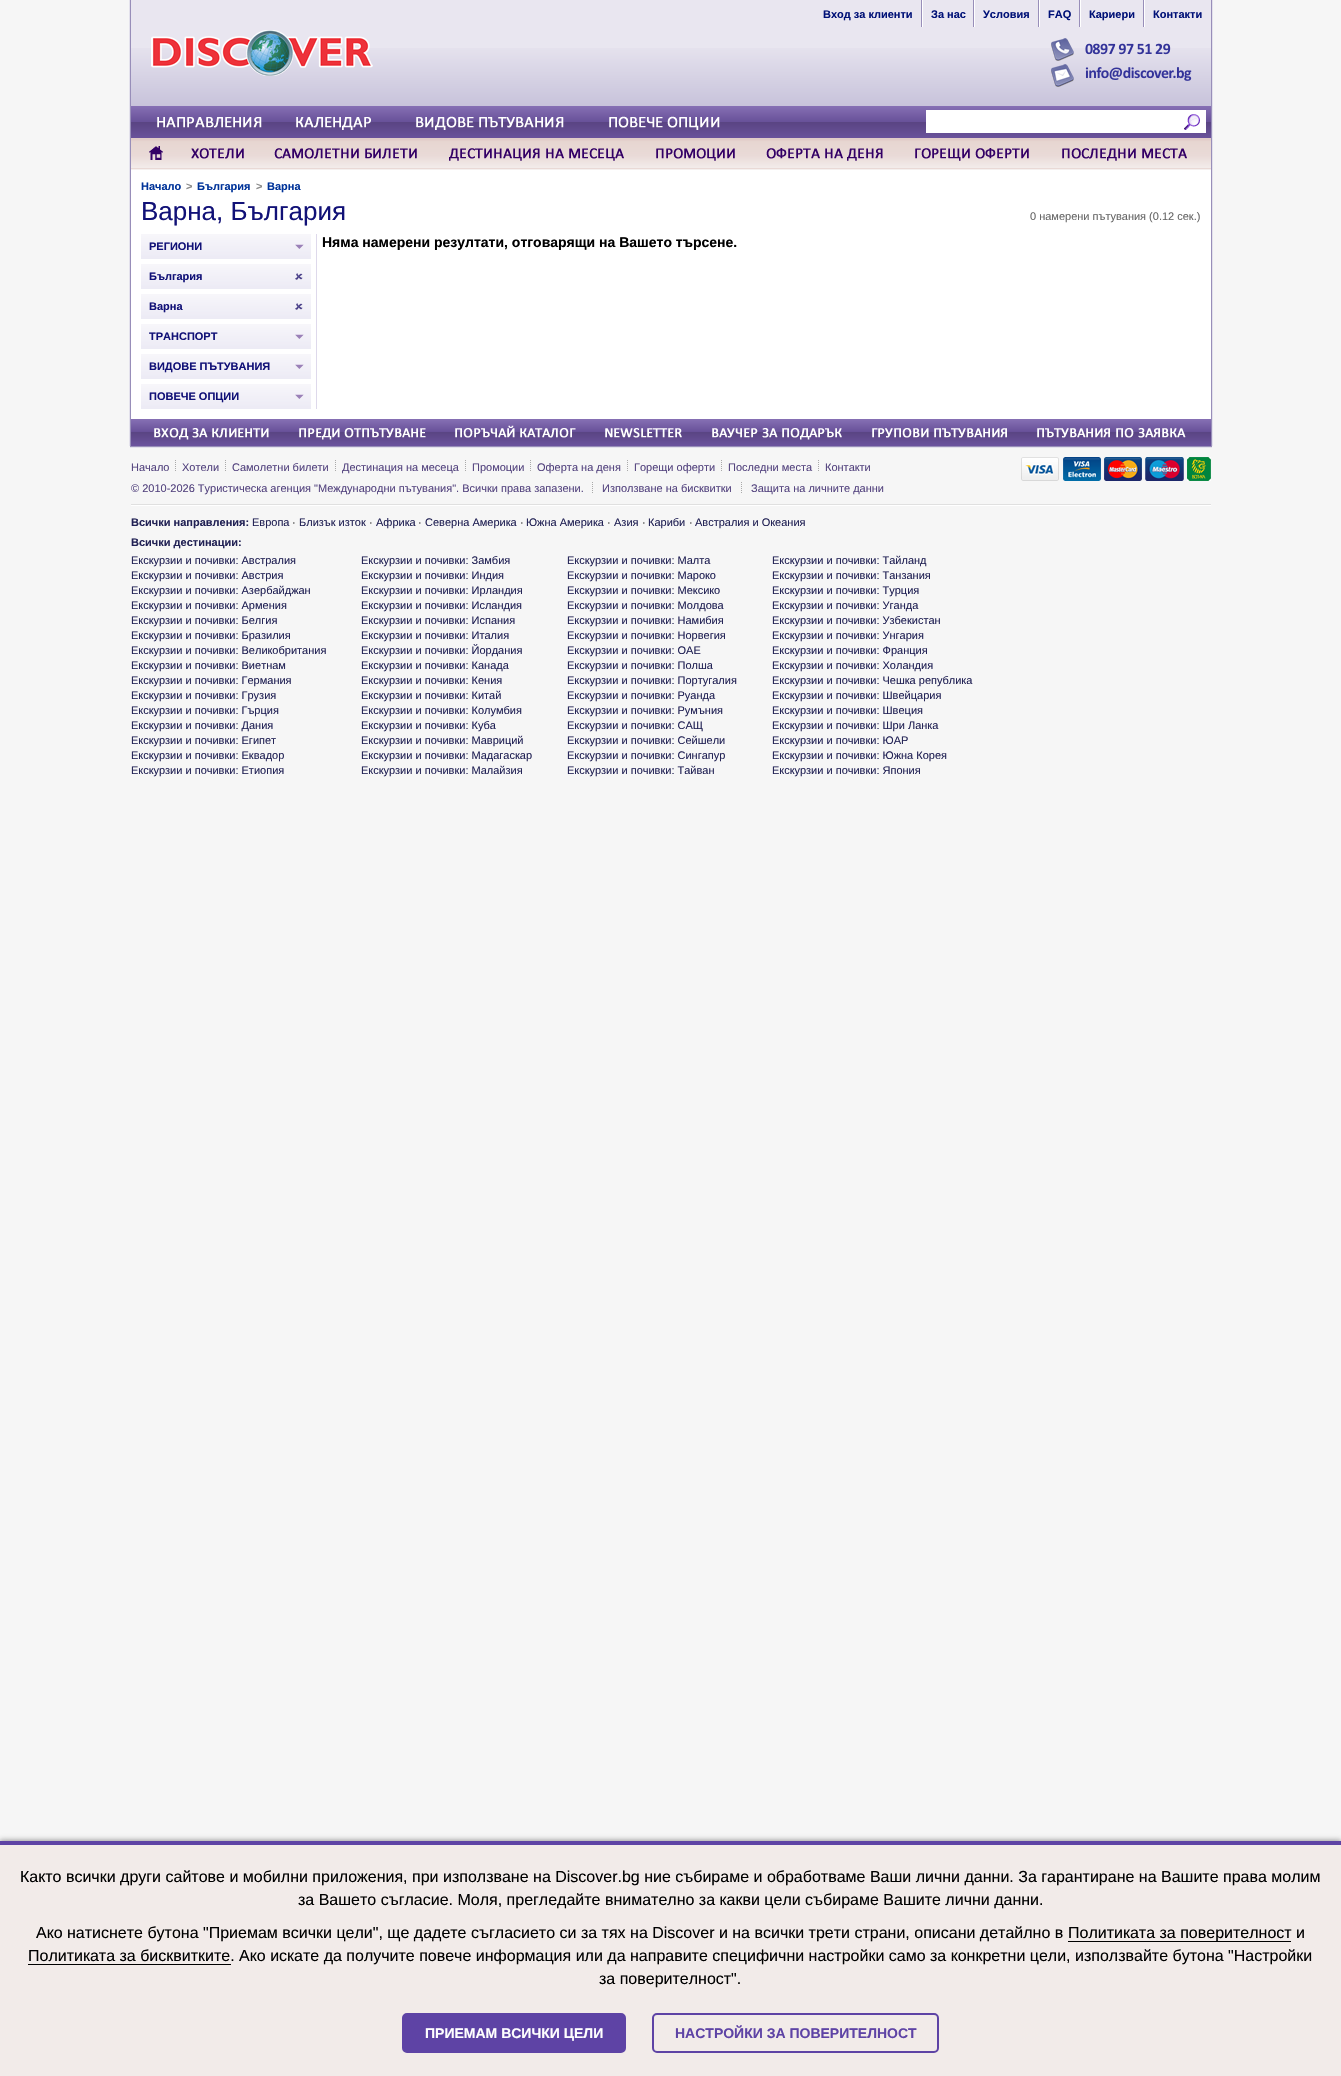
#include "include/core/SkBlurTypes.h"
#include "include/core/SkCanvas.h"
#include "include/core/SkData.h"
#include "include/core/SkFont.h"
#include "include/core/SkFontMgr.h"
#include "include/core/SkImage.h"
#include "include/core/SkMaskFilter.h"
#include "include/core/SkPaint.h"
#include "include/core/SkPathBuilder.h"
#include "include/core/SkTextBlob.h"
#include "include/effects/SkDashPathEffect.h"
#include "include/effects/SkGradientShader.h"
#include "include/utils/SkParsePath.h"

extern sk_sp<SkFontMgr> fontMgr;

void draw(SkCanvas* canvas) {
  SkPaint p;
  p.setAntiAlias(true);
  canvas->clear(SkColorSetRGB(246, 246, 246));
  p.setColor(SkColorSetRGB(227, 225, 236));
  canvas->drawRect(SkRect::MakeLTRB(129, 0, 1213, 446), p);
  p.setColor(SkColorSetRGB(152, 142, 185));
  canvas->drawRect(SkRect::MakeLTRB(130, 0, 1212, 447), p);
  p.setColor(SkColorSetRGB(233, 230, 240));
  canvas->drawRect(SkRect::MakeLTRB(131, 0, 1211, 48), p);
  canvas->drawImageRect(SkImages::DeferredFromEncodedData(SkData::MakeFromFileName("images/1.png")), SkRect::MakeLTRB(131, 48, 1211, 106), SkSamplingOptions());
  p.setColor(SkColorSetRGB(152, 142, 185));
  canvas->drawRect(SkRect::MakeLTRB(921, 0, 922, 27), p);
  canvas->drawRect(SkRect::MakeLTRB(973, 0, 974, 27), p);
  p.setColor(SK_ColorWHITE);
  canvas->drawRect(SkRect::MakeLTRB(922, 0, 923, 27), p);
  p.setColor(SkColorSetRGB(152, 142, 185));
  canvas->drawRect(SkRect::MakeLTRB(1038, 0, 1039, 27), p);
  p.setColor(SK_ColorWHITE);
  canvas->drawRect(SkRect::MakeLTRB(974, 0, 975, 27), p);
  p.setColor(SkColorSetRGB(152, 142, 185));
  canvas->drawRect(SkRect::MakeLTRB(1079, 0, 1080, 27), p);
  p.setColor(SK_ColorWHITE);
  canvas->drawRect(SkRect::MakeLTRB(1039, 0, 1040, 27), p);
  p.setColor(SkColorSetRGB(152, 142, 185));
  canvas->drawRect(SkRect::MakeLTRB(1143, 0, 1144, 27), p);
  p.setColor(SK_ColorWHITE);
  canvas->drawRect(SkRect::MakeLTRB(1080, 0, 1081, 27), p);
  canvas->drawRect(SkRect::MakeLTRB(1144, 0, 1145, 27), p);
  canvas->drawImageRect(SkImages::DeferredFromEncodedData(SkData::MakeFromFileName("images/2.png")), SkRect::MakeLTRB(151, 30, 373, 76), SkSamplingOptions());
  canvas->drawImageRect(SkImages::DeferredFromEncodedData(SkData::MakeFromFileName("images/3.png")), SkRect::MakeLTRB(1051, 38, 1171, 61), SkSamplingOptions());
  canvas->drawImageRect(SkImages::DeferredFromEncodedData(SkData::MakeFromFileName("images/4.png")), SkRect::MakeLTRB(1051, 64, 1192, 87), SkSamplingOptions());
  canvas->drawImageRect(SkImages::DeferredFromEncodedData(SkData::MakeFromFileName("images/5.png")), SkRect::MakeLTRB(131, 106, 1211, 138), SkSamplingOptions());
  canvas->drawImageRect(SkImages::DeferredFromEncodedData(SkData::MakeFromFileName("images/6.png")), SkRect::MakeLTRB(157, 117, 262, 128), SkSamplingOptions());
  canvas->drawImageRect(SkImages::DeferredFromEncodedData(SkData::MakeFromFileName("images/7.png")), SkRect::MakeLTRB(296, 117, 371, 130), SkSamplingOptions());
  canvas->drawImageRect(SkImages::DeferredFromEncodedData(SkData::MakeFromFileName("images/8.png")), SkRect::MakeLTRB(416, 116, 564, 130), SkSamplingOptions());
  canvas->drawImageRect(SkImages::DeferredFromEncodedData(SkData::MakeFromFileName("images/9.png")), SkRect::MakeLTRB(609, 116, 720, 130), SkSamplingOptions());
  canvas->drawRect(SkRect::MakeLTRB(926, 110, 1206, 133), p);
  canvas->drawImageRect(SkImages::DeferredFromEncodedData(SkData::MakeFromFileName("images/10.png")), SkRect::MakeLTRB(1184, 114, 1200, 130), SkSamplingOptions());
  canvas->drawImageRect(SkImages::DeferredFromEncodedData(SkData::MakeFromFileName("images/11.png")), SkRect::MakeLTRB(131, 138, 1211, 170), SkSamplingOptions());
  canvas->drawImageRect(SkImages::DeferredFromEncodedData(SkData::MakeFromFileName("images/12.png")), SkRect::MakeLTRB(149, 146, 163, 160), SkSamplingOptions());
  canvas->drawImageRect(SkImages::DeferredFromEncodedData(SkData::MakeFromFileName("images/13.png")), SkRect::MakeLTRB(191, 148, 244, 159), SkSamplingOptions());
  canvas->drawImageRect(SkImages::DeferredFromEncodedData(SkData::MakeFromFileName("images/14.png")), SkRect::MakeLTRB(274, 148, 417, 159), SkSamplingOptions());
  canvas->drawImageRect(SkImages::DeferredFromEncodedData(SkData::MakeFromFileName("images/15.png")), SkRect::MakeLTRB(449, 148, 624, 161), SkSamplingOptions());
  canvas->drawImageRect(SkImages::DeferredFromEncodedData(SkData::MakeFromFileName("images/16.png")), SkRect::MakeLTRB(656, 148, 735, 161), SkSamplingOptions());
  canvas->drawImageRect(SkImages::DeferredFromEncodedData(SkData::MakeFromFileName("images/17.png")), SkRect::MakeLTRB(766, 148, 883, 161), SkSamplingOptions());
  canvas->drawImageRect(SkImages::DeferredFromEncodedData(SkData::MakeFromFileName("images/18.png")), SkRect::MakeLTRB(915, 148, 1029, 161), SkSamplingOptions());
  canvas->drawImageRect(SkImages::DeferredFromEncodedData(SkData::MakeFromFileName("images/19.png")), SkRect::MakeLTRB(1062, 148, 1187, 161), SkSamplingOptions());
  canvas->drawRect(SkRect::MakeLTRB(131, 170, 1211, 419), p);
  canvas->drawImageRect(SkImages::DeferredFromEncodedData(SkData::MakeFromFileName("images/20.png")), SkRect::MakeLTRB(141, 234, 311, 259), SkSamplingOptions());
  canvas->drawImageRect(SkImages::DeferredFromEncodedData(SkData::MakeFromFileName("images/21.png")), SkRect::MakeLTRB(295, 244, 304, 249), SkSamplingOptions());
  canvas->drawImageRect(SkImages::DeferredFromEncodedData(SkData::MakeFromFileName("images/20.png")), SkRect::MakeLTRB(141, 264, 311, 289), SkSamplingOptions());
  canvas->drawImageRect(SkImages::DeferredFromEncodedData(SkData::MakeFromFileName("images/22.png")), SkRect::MakeLTRB(295, 273, 303, 280), SkSamplingOptions());
  canvas->drawImageRect(SkImages::DeferredFromEncodedData(SkData::MakeFromFileName("images/20.png")), SkRect::MakeLTRB(141, 294, 311, 319), SkSamplingOptions());
  canvas->drawImageRect(SkImages::DeferredFromEncodedData(SkData::MakeFromFileName("images/22.png")), SkRect::MakeLTRB(295, 303, 303, 310), SkSamplingOptions());
  canvas->drawImageRect(SkImages::DeferredFromEncodedData(SkData::MakeFromFileName("images/20.png")), SkRect::MakeLTRB(141, 324, 311, 349), SkSamplingOptions());
  canvas->drawImageRect(SkImages::DeferredFromEncodedData(SkData::MakeFromFileName("images/21.png")), SkRect::MakeLTRB(295, 334, 304, 339), SkSamplingOptions());
  canvas->drawImageRect(SkImages::DeferredFromEncodedData(SkData::MakeFromFileName("images/20.png")), SkRect::MakeLTRB(141, 354, 311, 379), SkSamplingOptions());
  canvas->drawImageRect(SkImages::DeferredFromEncodedData(SkData::MakeFromFileName("images/21.png")), SkRect::MakeLTRB(295, 364, 304, 369), SkSamplingOptions());
  canvas->drawImageRect(SkImages::DeferredFromEncodedData(SkData::MakeFromFileName("images/20.png")), SkRect::MakeLTRB(141, 384, 311, 409), SkSamplingOptions());
  canvas->drawImageRect(SkImages::DeferredFromEncodedData(SkData::MakeFromFileName("images/21.png")), SkRect::MakeLTRB(295, 394, 304, 399), SkSamplingOptions());
  p.setColor(SkColorSetRGB(222, 217, 235));
  canvas->drawRect(SkRect::MakeLTRB(316, 234, 317, 409), p);
  canvas->drawImageRect(SkImages::DeferredFromEncodedData(SkData::MakeFromFileName("images/23.png")), SkRect::MakeLTRB(131, 419, 1211, 446), SkSamplingOptions());
  canvas->drawImageRect(SkImages::DeferredFromEncodedData(SkData::MakeFromFileName("images/24.png")), SkRect::MakeLTRB(154, 428, 269, 440), SkSamplingOptions());
  canvas->drawImageRect(SkImages::DeferredFromEncodedData(SkData::MakeFromFileName("images/25.png")), SkRect::MakeLTRB(299, 428, 426, 440), SkSamplingOptions());
  canvas->drawImageRect(SkImages::DeferredFromEncodedData(SkData::MakeFromFileName("images/26.png")), SkRect::MakeLTRB(455, 425, 576, 438), SkSamplingOptions());
  canvas->drawImageRect(SkImages::DeferredFromEncodedData(SkData::MakeFromFileName("images/27.png")), SkRect::MakeLTRB(605, 428, 682, 438), SkSamplingOptions());
  canvas->drawImageRect(SkImages::DeferredFromEncodedData(SkData::MakeFromFileName("images/28.png")), SkRect::MakeLTRB(712, 428, 842, 440), SkSamplingOptions());
  canvas->drawImageRect(SkImages::DeferredFromEncodedData(SkData::MakeFromFileName("images/29.png")), SkRect::MakeLTRB(872, 428, 1007, 438), SkSamplingOptions());
  canvas->drawImageRect(SkImages::DeferredFromEncodedData(SkData::MakeFromFileName("images/30.png")), SkRect::MakeLTRB(1037, 428, 1186, 438), SkSamplingOptions());
  p.setColor(SkColorSetRGB(227, 225, 236));
  canvas->drawRect(SkRect::MakeLTRB(130, 447, 1212, 448), p);
  canvas->drawImageRect(SkImages::DeferredFromEncodedData(SkData::MakeFromFileName("images/31.png")), SkRect::MakeLTRB(175, 460, 176, 471), SkSamplingOptions());
  canvas->drawImageRect(SkImages::DeferredFromEncodedData(SkData::MakeFromFileName("images/31.png")), SkRect::MakeLTRB(225, 460, 226, 471), SkSamplingOptions());
  canvas->drawImageRect(SkImages::DeferredFromEncodedData(SkData::MakeFromFileName("images/31.png")), SkRect::MakeLTRB(335, 460, 336, 471), SkSamplingOptions());
  canvas->drawImageRect(SkImages::DeferredFromEncodedData(SkData::MakeFromFileName("images/31.png")), SkRect::MakeLTRB(465, 460, 466, 471), SkSamplingOptions());
  canvas->drawImageRect(SkImages::DeferredFromEncodedData(SkData::MakeFromFileName("images/31.png")), SkRect::MakeLTRB(530, 460, 531, 471), SkSamplingOptions());
  canvas->drawImageRect(SkImages::DeferredFromEncodedData(SkData::MakeFromFileName("images/31.png")), SkRect::MakeLTRB(627, 460, 628, 471), SkSamplingOptions());
  canvas->drawImageRect(SkImages::DeferredFromEncodedData(SkData::MakeFromFileName("images/31.png")), SkRect::MakeLTRB(721, 460, 722, 471), SkSamplingOptions());
  canvas->drawImageRect(SkImages::DeferredFromEncodedData(SkData::MakeFromFileName("images/31.png")), SkRect::MakeLTRB(818, 460, 819, 471), SkSamplingOptions());
  canvas->drawImageRect(SkImages::DeferredFromEncodedData(SkData::MakeFromFileName("images/32.png")), SkRect::MakeLTRB(1021, 457, 1211, 481), SkSamplingOptions());
  canvas->drawImageRect(SkImages::DeferredFromEncodedData(SkData::MakeFromFileName("images/31.png")), SkRect::MakeLTRB(592, 482, 593, 493), SkSamplingOptions());
  canvas->drawImageRect(SkImages::DeferredFromEncodedData(SkData::MakeFromFileName("images/31.png")), SkRect::MakeLTRB(741, 482, 742, 493), SkSamplingOptions());
  p.setColor(SkColorSetRGB(224, 224, 224));
  canvas->drawRect(SkRect::MakeLTRB(131, 504, 1211, 505), p);
  p.setColor(SK_ColorWHITE);
  canvas->drawRect(SkRect::MakeLTRB(131, 505, 1211, 506), p);
  p.setColor(SkColorSetARGB(115, 165, 165, 165));
  p.setMaskFilter(SkMaskFilter::MakeBlur(kNormal_SkBlurStyle, 2.5f));
  canvas->drawRect(SkRect::MakeLTRB(0, 1839, 1341, 2074), p);
  p.setMaskFilter(nullptr);
  p.setColor(SkColorSetARGB(166, 128, 128, 128));
  p.setMaskFilter(SkMaskFilter::MakeBlur(kNormal_SkBlurStyle, 2.5f));
  canvas->drawRect(SkRect::MakeLTRB(0, 1841, 1341, 2076), p);
  p.setMaskFilter(nullptr);
  p.setColor(SkColorSetRGB(242, 235, 233));
  canvas->drawRect(SkRect::MakeLTRB(0, 1845, 1341, 2076), p);
  p.setColor(SkColorSetRGB(94, 67, 165));
  canvas->drawRect(SkRect::MakeLTRB(0, 1841, 1341, 1845), p);
  p.setColor(SK_ColorBLACK);
  canvas->drawRect(SkRect::MakeLTRB(1068, 1941, 1291, 1942), p);
  canvas->drawRect(SkRect::MakeLTRB(28, 1964, 231, 1965), p);
  p.setColor(SkColorSetRGB(94, 67, 165));
  canvas->drawRoundRect(SkRect::MakeLTRB(403, 2014, 625, 2052), 4, 4, p);
  p.setStyle(SkPaint::kStroke_Style);
  p.setStrokeWidth(2);
  canvas->drawRoundRect(SkRect::MakeLTRB(403, 2014, 625, 2052), 4, 4, p);
  canvas->drawRoundRect(SkRect::MakeLTRB(653, 2014, 938, 2052), 4, 4, p);
  SkFont font1(fontMgr->matchFamilyStyle("Liberation Sans", SkFontStyle::Bold()), 11);
  font1.setSubpixel(true);
  p.setStyle(SkPaint::kFill_Style);
  p.setColor(SkColorSetRGB(0, 17, 119));
  canvas->drawString("Вход за клиенти", 823, 18, font1, p);
  canvas->drawString("За нас", 931, 18, font1, p);
  canvas->drawString("Условия", 983, 18, font1, p);
  canvas->drawString("FAQ", 1048, 18, font1, p);
  canvas->drawString("Кариери", 1089, 18, font1, p);
  canvas->drawString("Контакти", 1153, 18, font1, p);
  p.setColor(SkColorSetRGB(0, 51, 153));
  canvas->drawString("Начало", 141, 190, font1, p);
  p.setColor(SkColorSetRGB(136, 136, 136));
  canvas->drawString(">", 186, 190, font1, p);
  p.setColor(SkColorSetRGB(0, 51, 153));
  canvas->drawString("България", 197, 190, font1, p);
  p.setColor(SkColorSetRGB(136, 136, 136));
  canvas->drawString(">", 256, 190, font1, p);
  p.setColor(SkColorSetRGB(0, 51, 153));
  canvas->drawString("Варна", 267, 190, font1, p);
  SkFont font2(fontMgr->matchFamilyStyle("Liberation Sans", SkFontStyle::Normal()), 26);
  font2.setSubpixel(true);
  p.setColor(SkColorSetRGB(17, 17, 119));
  canvas->drawString("Варна, България", 141, 220, font2, p);
  SkFont font3(fontMgr->matchFamilyStyle("Liberation Sans", SkFontStyle::Normal()), 11);
  font3.setSubpixel(true);
  p.setColor(SkColorSetRGB(102, 102, 102));
  canvas->drawString("0 намерени пътувания (0.12 сек.)", 1030, 220, font3, p);
  p.setColor(SkColorSetRGB(17, 17, 119));
  canvas->drawString("РЕГИОНИ", 149, 250, font1, p);
  canvas->drawString("България", 149, 280, font1, p);
  canvas->drawString("Варна", 149, 310, font1, p);
  canvas->drawString("ТРАНСПОРТ", 149, 340, font1, p);
  canvas->drawString("ВИДОВЕ ПЪТУВАНИЯ", 149, 370, font1, p);
  canvas->drawString("ПОВЕЧЕ ОПЦИИ", 149, 400, font1, p);
  SkFont font4(fontMgr->matchFamilyStyle("Liberation Sans", SkFontStyle::Bold()), 14);
  font4.setSubpixel(true);
  p.setColor(SK_ColorBLACK);
  canvas->drawString("Няма намерени резултати, отговарящи на Вашето търсене.", 322, 247, font4, p);
  p.setColor(SkColorSetRGB(84, 68, 127));
  canvas->drawString("Начало", 131, 471, font3, p);
  canvas->drawString("Хотели", 182, 471, font3, p);
  canvas->drawString("Самолетни билети", 232, 471, font3, p);
  canvas->drawString("Дестинация на месеца", 342, 471, font3, p);
  canvas->drawString("Промоции", 472, 471, font3, p);
  canvas->drawString("Оферта на деня", 537, 471, font3, p);
  canvas->drawString("Горещи оферти", 634, 471, font3, p);
  canvas->drawString("Последни места", 728, 471, font3, p);
  canvas->drawString("Контакти", 825, 471, font3, p);
  canvas->drawString("© 2010-2026 Туристическа агенция \"Международни пътувания\". Всички права запазени.", 131, 492, font3, p);
  canvas->drawString("Използване на бисквитки", 602, 492, font3, p);
  canvas->drawString("Защита на личните данни", 751, 492, font3, p);
  p.setColor(SkColorSetRGB(34, 34, 85));
  canvas->drawString("Всички направления:", 131, 526, font1, p);
  canvas->drawString("Европа", 252, 526, font3, p);
  p.setColor(SK_ColorBLACK);
  canvas->drawString("·", 292, 526, font3, p);
  p.setColor(SkColorSetRGB(34, 34, 85));
  canvas->drawString("Близък изток", 299, 526, font3, p);
  p.setColor(SK_ColorBLACK);
  canvas->drawString("·", 369, 526, font3, p);
  p.setColor(SkColorSetRGB(34, 34, 85));
  canvas->drawString("Африка", 376, 526, font3, p);
  p.setColor(SK_ColorBLACK);
  canvas->drawString("·", 418, 526, font3, p);
  p.setColor(SkColorSetRGB(34, 34, 85));
  canvas->drawString("Северна Америка", 425, 526, font3, p);
  p.setColor(SK_ColorBLACK);
  canvas->drawString("·", 520, 526, font3, p);
  p.setColor(SkColorSetRGB(34, 34, 85));
  canvas->drawString("Южна Америка", 526, 526, font3, p);
  p.setColor(SK_ColorBLACK);
  canvas->drawString("·", 607, 526, font3, p);
  p.setColor(SkColorSetRGB(34, 34, 85));
  canvas->drawString("Азия", 614, 526, font3, p);
  p.setColor(SK_ColorBLACK);
  canvas->drawString("·", 642, 526, font3, p);
  p.setColor(SkColorSetRGB(34, 34, 85));
  canvas->drawString("Кариби", 648, 526, font3, p);
  p.setColor(SK_ColorBLACK);
  canvas->drawString("·", 689, 526, font3, p);
  p.setColor(SkColorSetRGB(34, 34, 85));
  canvas->drawString("Австралия и Океания", 695, 526, font3, p);
  canvas->drawString("Всички дестинации:", 131, 546, font1, p);
  canvas->drawString("Екскурзии и почивки: Австралия", 131, 564, font3, p);
  canvas->drawString("Екскурзии и почивки: Австрия", 131, 579, font3, p);
  canvas->drawString("Екскурзии и почивки: Азербайджан", 131, 594, font3, p);
  canvas->drawString("Екскурзии и почивки: Армения", 131, 609, font3, p);
  canvas->drawString("Екскурзии и почивки: Белгия", 131, 624, font3, p);
  canvas->drawString("Екскурзии и почивки: Бразилия", 131, 639, font3, p);
  canvas->drawString("Екскурзии и почивки: Великобритания", 131, 654, font3, p);
  canvas->drawString("Екскурзии и почивки: Виетнам", 131, 669, font3, p);
  canvas->drawString("Екскурзии и почивки: Германия", 131, 684, font3, p);
  canvas->drawString("Екскурзии и почивки: Грузия", 131, 699, font3, p);
  canvas->drawString("Екскурзии и почивки: Гърция", 131, 714, font3, p);
  canvas->drawString("Екскурзии и почивки: Дания", 131, 729, font3, p);
  canvas->drawString("Екскурзии и почивки: Египет", 131, 744, font3, p);
  canvas->drawString("Екскурзии и почивки: Еквадор", 131, 759, font3, p);
  canvas->drawString("Екскурзии и почивки: Етиопия", 131, 774, font3, p);
  canvas->drawString("Екскурзии и почивки: Замбия", 361, 564, font3, p);
  canvas->drawString("Екскурзии и почивки: Индия", 361, 579, font3, p);
  canvas->drawString("Екскурзии и почивки: Ирландия", 361, 594, font3, p);
  canvas->drawString("Екскурзии и почивки: Исландия", 361, 609, font3, p);
  canvas->drawString("Екскурзии и почивки: Испания", 361, 624, font3, p);
  canvas->drawString("Екскурзии и почивки: Италия", 361, 639, font3, p);
  canvas->drawString("Екскурзии и почивки: Йордания", 361, 654, font3, p);
  canvas->drawString("Екскурзии и почивки: Канада", 361, 669, font3, p);
  canvas->drawString("Екскурзии и почивки: Кения", 361, 684, font3, p);
  canvas->drawString("Екскурзии и почивки: Китай", 361, 699, font3, p);
  canvas->drawString("Екскурзии и почивки: Колумбия", 361, 714, font3, p);
  canvas->drawString("Екскурзии и почивки: Куба", 361, 729, font3, p);
  canvas->drawString("Екскурзии и почивки: Мавриций", 361, 744, font3, p);
  canvas->drawString("Екскурзии и почивки: Мадагаскар", 361, 759, font3, p);
  canvas->drawString("Екскурзии и почивки: Малайзия", 361, 774, font3, p);
  canvas->drawString("Екскурзии и почивки: Малта", 567, 564, font3, p);
  canvas->drawString("Екскурзии и почивки: Мароко", 567, 579, font3, p);
  canvas->drawString("Екскурзии и почивки: Мексико", 567, 594, font3, p);
  canvas->drawString("Екскурзии и почивки: Молдова", 567, 609, font3, p);
  canvas->drawString("Екскурзии и почивки: Намибия", 567, 624, font3, p);
  canvas->drawString("Екскурзии и почивки: Норвегия", 567, 639, font3, p);
  canvas->drawString("Екскурзии и почивки: ОАЕ", 567, 654, font3, p);
  canvas->drawString("Екскурзии и почивки: Полша", 567, 669, font3, p);
  canvas->drawString("Екскурзии и почивки: Португалия", 567, 684, font3, p);
  canvas->drawString("Екскурзии и почивки: Руанда", 567, 699, font3, p);
  canvas->drawString("Екскурзии и почивки: Румъния", 567, 714, font3, p);
  canvas->drawString("Екскурзии и почивки: САЩ", 567, 729, font3, p);
  canvas->drawString("Екскурзии и почивки: Сейшели", 567, 744, font3, p);
  canvas->drawString("Екскурзии и почивки: Сингапур", 567, 759, font3, p);
  canvas->drawString("Екскурзии и почивки: Тайван", 567, 774, font3, p);
  canvas->drawString("Екскурзии и почивки: Тайланд", 772, 564, font3, p);
  canvas->drawString("Екскурзии и почивки: Танзания", 772, 579, font3, p);
  canvas->drawString("Екскурзии и почивки: Турция", 772, 594, font3, p);
  canvas->drawString("Екскурзии и почивки: Уганда", 772, 609, font3, p);
  canvas->drawString("Екскурзии и почивки: Узбекистан", 772, 624, font3, p);
  canvas->drawString("Екскурзии и почивки: Унгария", 772, 639, font3, p);
  canvas->drawString("Екскурзии и почивки: Франция", 772, 654, font3, p);
  canvas->drawString("Екскурзии и почивки: Холандия", 772, 669, font3, p);
  canvas->drawString("Екскурзии и почивки: Чешка република", 772, 684, font3, p);
  canvas->drawString("Екскурзии и почивки: Швейцария", 772, 699, font3, p);
  canvas->drawString("Екскурзии и почивки: Швеция", 772, 714, font3, p);
  canvas->drawString("Екскурзии и почивки: Шри Ланка", 772, 729, font3, p);
  canvas->drawString("Екскурзии и почивки: ЮАР", 772, 744, font3, p);
  canvas->drawString("Екскурзии и почивки: Южна Корея", 772, 759, font3, p);
  canvas->drawString("Екскурзии и почивки: Япония", 772, 774, font3, p);
  SkFont font5(fontMgr->matchFamilyStyle("Liberation Sans", SkFontStyle::Normal()), 16);
  font5.setSubpixel(true);
  p.setColor(SK_ColorBLACK);
  canvas->drawString("Както всички други сайтове и мобилни приложения, при използване на Discover.bg ние събираме и обработваме Ваши лични данни. За гарантиране на Вашите права молим", 20, 1882, font5, p);
  canvas->drawString("за Вашето съгласие. Моля, прегледайте внимателно за какви цели събираме Вашите лични данни.", 298, 1905, font5, p);
  canvas->drawString("Ако натиснете бутона \"Приемам всички цели\", ще дадете съгласието си за тях на Discover и на всички трети страни, описани детайлно в", 36, 1938, font5, p);
  canvas->drawString("Политиката за поверителност и", 1068, 1938, font5, p);
  canvas->drawString("Политиката за бисквитките. Ако искате да получите повече информация или да направите специфични настройки само за конкретни цели, използвайте бутона \"Настройки", 28, 1961, font5, p);
  canvas->drawString("за поверителност\".", 599, 1984, font5, p);
  p.setColor(SK_ColorWHITE);
  canvas->drawString("ПРИЕМАМ ВСИЧКИ ЦЕЛИ", 425, 2038, font4, p);
  p.setColor(SkColorSetRGB(94, 67, 165));
  canvas->drawString("НАСТРОЙКИ ЗА ПОВЕРИТЕЛНОСТ", 675, 2038, font4, p);
}
